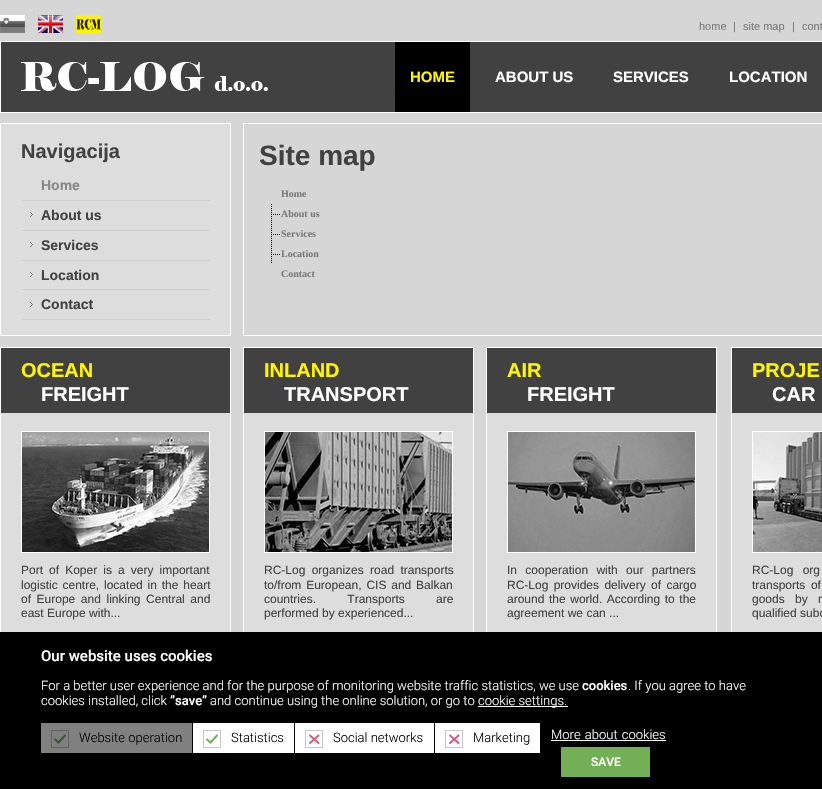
#include "include/core/SkBlurTypes.h"
#include "include/core/SkCanvas.h"
#include "include/core/SkData.h"
#include "include/core/SkFont.h"
#include "include/core/SkFontMgr.h"
#include "include/core/SkImage.h"
#include "include/core/SkMaskFilter.h"
#include "include/core/SkPaint.h"
#include "include/core/SkPathBuilder.h"
#include "include/core/SkTextBlob.h"
#include "include/effects/SkDashPathEffect.h"
#include "include/effects/SkGradientShader.h"
#include "include/utils/SkParsePath.h"

extern sk_sp<SkFontMgr> fontMgr;

void draw(SkCanvas* canvas) {
  SkPaint p;
  p.setAntiAlias(true);
  auto spacedText = [&](const char* s, float x, float y, const SkFont& font, const SkPaint& ink, float letter, float word) {
    std::vector<SkGlyphID> glyphs(font.countText(s, strlen(s), SkTextEncoding::kUTF8));
    std::vector<float> xs(glyphs.size());
    font.textToGlyphs(s, strlen(s), SkTextEncoding::kUTF8, glyphs);
    font.getXPos(glyphs, xs, x);
    float extra = 0;
    for (size_t i = 0; i < glyphs.size(); i++) {
      xs[i] += extra;
      extra += letter + word * (glyphs[i] == font.unicharToGlyph(' '));
    }
    canvas->drawTextBlob(SkTextBlob::MakeFromPosHGlyphs(glyphs, xs, y, font), 0, 0, ink);
  };
  canvas->clear(SkColorSetRGB(214, 214, 214));
  canvas->drawImageRect(SkImages::DeferredFromEncodedData(SkData::MakeFromFileName("images/1.png")), SkRect::MakeLTRB(0, 15, 25, 33), SkSamplingOptions());
  canvas->drawImageRect(SkImages::DeferredFromEncodedData(SkData::MakeFromFileName("images/2.png")), SkRect::MakeLTRB(38, 15, 63, 33), SkSamplingOptions());
  canvas->drawImageRect(SkImages::DeferredFromEncodedData(SkData::MakeFromFileName("images/3.png")), SkRect::MakeLTRB(76, 15, 101, 33), SkSamplingOptions());
  p.setColor(SkColorSetRGB(65, 65, 65));
  canvas->drawRect(SkRect::MakeLTRB(0.5f, 41.5f, 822.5f, 112.5f), p);
  p.setStyle(SkPaint::kStroke_Style);
  p.setStrokeWidth(1);
  p.setColor(SK_ColorWHITE);
  canvas->drawRect(SkRect::MakeLTRB(0.5f, 41.5f, 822.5f, 112.5f), p);
  canvas->drawImageRect(SkImages::DeferredFromEncodedData(SkData::MakeFromFileName("images/4.png")), SkRect::MakeLTRB(21, 62, 268, 91), SkSamplingOptions());
  p.setStyle(SkPaint::kFill_Style);
  p.setColor(SK_ColorBLACK);
  canvas->drawRect(SkRect::MakeLTRB(395, 42, 470, 112), p);
  p.setColor(SkColorSetRGB(221, 221, 221));
  canvas->drawRect(SkRect::MakeLTRB(0.5f, 123.5f, 230.5f, 335.5f), p);
  p.setStyle(SkPaint::kStroke_Style);
  p.setColor(SK_ColorWHITE);
  canvas->drawRect(SkRect::MakeLTRB(0.5f, 123.5f, 230.5f, 335.5f), p);
  p.setStyle(SkPaint::kFill_Style);
  p.setColor(SkColorSetRGB(207, 207, 207));
  canvas->drawRect(SkRect::MakeLTRB(21, 200, 210, 201), p);
  canvas->drawImageRect(SkImages::DeferredFromEncodedData(SkData::MakeFromFileName("images/5.png")), SkRect::MakeLTRB(30, 183, 33, 188), SkSamplingOptions());
  canvas->drawRect(SkRect::MakeLTRB(21, 230, 210, 231), p);
  canvas->drawImageRect(SkImages::DeferredFromEncodedData(SkData::MakeFromFileName("images/6.png")), SkRect::MakeLTRB(30, 212, 33, 217), SkSamplingOptions());
  canvas->drawRect(SkRect::MakeLTRB(21, 260, 210, 261), p);
  canvas->drawImageRect(SkImages::DeferredFromEncodedData(SkData::MakeFromFileName("images/6.png")), SkRect::MakeLTRB(30, 242, 33, 247), SkSamplingOptions());
  canvas->drawRect(SkRect::MakeLTRB(21, 289, 210, 290), p);
  canvas->drawImageRect(SkImages::DeferredFromEncodedData(SkData::MakeFromFileName("images/6.png")), SkRect::MakeLTRB(30, 272, 33, 277), SkSamplingOptions());
  canvas->drawRect(SkRect::MakeLTRB(21, 319, 210, 320), p);
  canvas->drawImageRect(SkImages::DeferredFromEncodedData(SkData::MakeFromFileName("images/6.png")), SkRect::MakeLTRB(30, 302, 33, 307), SkSamplingOptions());
  p.setStyle(SkPaint::kStroke_Style);
  p.setColor(SK_ColorWHITE);
  canvas->drawRect(SkRect::MakeLTRB(243.5f, 123.5f, 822.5f, 335.5f), p);
  canvas->drawImageRect(SkImages::DeferredFromEncodedData(SkData::MakeFromFileName("images/7.png")), SkRect::MakeLTRB(271, 204, 280, 223), SkSamplingOptions());
  canvas->drawImageRect(SkImages::DeferredFromEncodedData(SkData::MakeFromFileName("images/7.png")), SkRect::MakeLTRB(271, 224, 280, 243), SkSamplingOptions());
  canvas->drawImageRect(SkImages::DeferredFromEncodedData(SkData::MakeFromFileName("images/7.png")), SkRect::MakeLTRB(271, 244, 280, 263), SkSamplingOptions());
  p.setStyle(SkPaint::kFill_Style);
  p.setColor(SkColorSetRGB(221, 221, 221));
  canvas->drawRect(SkRect::MakeLTRB(1, 413, 230, 632), p);
  p.setStyle(SkPaint::kStroke_Style);
  p.setColor(SK_ColorWHITE);
  canvas->drawRect(SkRect::MakeLTRB(0.5f, 347.5f, 230.5f, 665.5f), p);
  p.setStyle(SkPaint::kFill_Style);
  p.setColor(SkColorSetRGB(65, 65, 65));
  canvas->drawRect(SkRect::MakeLTRB(1, 348, 230, 413), p);
  p.setStyle(SkPaint::kStroke_Style);
  p.setColor(SK_ColorWHITE);
  canvas->drawRect(SkRect::MakeLTRB(21.5f, 431.5f, 209.5f, 552.5f), p);
  canvas->drawImageRect(SkImages::DeferredFromEncodedData(SkData::MakeFromFileName("images/8.png")), SkRect::MakeLTRB(22, 432, 209, 552), SkSamplingOptions());
  p.setStyle(SkPaint::kFill_Style);
  p.setColor(SkColorSetRGB(221, 221, 221));
  canvas->drawRect(SkRect::MakeLTRB(244, 413, 473, 632), p);
  p.setStyle(SkPaint::kStroke_Style);
  p.setColor(SK_ColorWHITE);
  canvas->drawRect(SkRect::MakeLTRB(243.5f, 347.5f, 473.5f, 665.5f), p);
  p.setStyle(SkPaint::kFill_Style);
  p.setColor(SkColorSetRGB(65, 65, 65));
  canvas->drawRect(SkRect::MakeLTRB(244, 348, 473, 413), p);
  p.setStyle(SkPaint::kStroke_Style);
  p.setColor(SK_ColorWHITE);
  canvas->drawRect(SkRect::MakeLTRB(264.5f, 431.5f, 452.5f, 552.5f), p);
  canvas->drawImageRect(SkImages::DeferredFromEncodedData(SkData::MakeFromFileName("images/9.png")), SkRect::MakeLTRB(265, 432, 452, 552), SkSamplingOptions());
  p.setStyle(SkPaint::kFill_Style);
  p.setColor(SkColorSetRGB(221, 221, 221));
  canvas->drawRect(SkRect::MakeLTRB(487, 413, 716, 632), p);
  p.setStyle(SkPaint::kStroke_Style);
  p.setColor(SK_ColorWHITE);
  canvas->drawRect(SkRect::MakeLTRB(486.5f, 347.5f, 716.5f, 665.5f), p);
  p.setStyle(SkPaint::kFill_Style);
  p.setColor(SkColorSetRGB(65, 65, 65));
  canvas->drawRect(SkRect::MakeLTRB(487, 348, 716, 413), p);
  p.setStyle(SkPaint::kStroke_Style);
  p.setColor(SK_ColorWHITE);
  canvas->drawRect(SkRect::MakeLTRB(507.5f, 431.5f, 695.5f, 552.5f), p);
  canvas->drawImageRect(SkImages::DeferredFromEncodedData(SkData::MakeFromFileName("images/10.png")), SkRect::MakeLTRB(508, 432, 695, 552), SkSamplingOptions());
  p.setStyle(SkPaint::kFill_Style);
  p.setColor(SkColorSetRGB(221, 221, 221));
  canvas->drawRect(SkRect::MakeLTRB(732, 413, 822, 632), p);
  p.setStyle(SkPaint::kStroke_Style);
  p.setColor(SK_ColorWHITE);
  canvas->drawRect(SkRect::MakeLTRB(731.5f, 347.5f, 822.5f, 665.5f), p);
  p.setStyle(SkPaint::kFill_Style);
  p.setColor(SkColorSetRGB(65, 65, 65));
  canvas->drawRect(SkRect::MakeLTRB(732, 348, 822, 413), p);
  p.setStyle(SkPaint::kStroke_Style);
  p.setColor(SK_ColorWHITE);
  canvas->drawRect(SkRect::MakeLTRB(752.5f, 431.5f, 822.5f, 552.5f), p);
  canvas->drawImageRect(SkImages::DeferredFromEncodedData(SkData::MakeFromFileName("images/11.png")), SkRect::MakeLTRB(753, 432, 822, 552), SkSamplingOptions());
  p.setStyle(SkPaint::kFill_Style);
  p.setColor(SK_ColorBLACK);
  canvas->drawRect(SkRect::MakeLTRB(0, 632, 822, 789), p);
  p.setColor(SK_ColorWHITE);
  canvas->drawRect(SkRect::MakeLTRB(478, 706, 568, 707), p);
  p.setColor(SkColorSetRGB(128, 128, 128));
  canvas->drawRect(SkRect::MakeLTRB(41, 723, 192, 753), p);
  p.setStyle(SkPaint::kStroke_Style);
  p.setStrokeWidth(2);
  p.setStrokeCap(SkPaint::kRound_Cap);
  p.setColor(SkColorSetRGB(58, 88, 43));
  canvas->drawPath(SkPathBuilder().moveTo(65, 735.5f).lineTo(58.5f, 742.5f).lineTo(55, 739.5f).detach(), p);
  p.setStrokeWidth(1);
  p.setStrokeCap(SkPaint::kButt_Cap);
  p.setColor(SkColorSetRGB(99, 99, 99));
  canvas->drawRect(SkRect::MakeLTRB(51.5f, 730.5f, 68.5f, 747.5f), p);
  p.setStyle(SkPaint::kFill_Style);
  p.setColor(SK_ColorWHITE);
  canvas->drawRect(SkRect::MakeLTRB(193, 723, 294, 753), p);
  p.setStyle(SkPaint::kStroke_Style);
  p.setStrokeWidth(2);
  p.setStrokeCap(SkPaint::kRound_Cap);
  p.setColor(SkColorSetRGB(115, 175, 85));
  canvas->drawPath(SkPathBuilder().moveTo(217, 735.5f).lineTo(210.5f, 742.5f).lineTo(207, 739.5f).detach(), p);
  p.setStrokeWidth(1);
  p.setStrokeCap(SkPaint::kButt_Cap);
  p.setColor(SkColorSetRGB(198, 198, 198));
  canvas->drawRect(SkRect::MakeLTRB(203.5f, 730.5f, 220.5f, 747.5f), p);
  p.setStyle(SkPaint::kFill_Style);
  p.setColor(SK_ColorWHITE);
  canvas->drawRect(SkRect::MakeLTRB(295, 723, 434, 753), p);
  p.setStyle(SkPaint::kStroke_Style);
  p.setStrokeWidth(2);
  p.setStrokeCap(SkPaint::kRound_Cap);
  p.setColor(SkColorSetRGB(208, 96, 121));
  canvas->drawPath(SkPathBuilder().moveTo(310, 735.5f).lineTo(318.5f, 743).moveTo(318.5f, 735.5f).lineTo(310, 743).detach(), p);
  p.setStrokeWidth(1);
  p.setStrokeCap(SkPaint::kButt_Cap);
  p.setColor(SkColorSetRGB(198, 198, 198));
  canvas->drawRect(SkRect::MakeLTRB(305.5f, 730.5f, 322.5f, 747.5f), p);
  p.setStyle(SkPaint::kFill_Style);
  p.setColor(SK_ColorWHITE);
  canvas->drawRect(SkRect::MakeLTRB(435, 723, 540, 753), p);
  p.setStyle(SkPaint::kStroke_Style);
  p.setStrokeWidth(2);
  p.setStrokeCap(SkPaint::kRound_Cap);
  p.setColor(SkColorSetRGB(208, 96, 121));
  canvas->drawPath(SkPathBuilder().moveTo(450, 735.5f).lineTo(458.5f, 743).moveTo(458.5f, 735.5f).lineTo(450, 743).detach(), p);
  p.setStrokeWidth(1);
  p.setStrokeCap(SkPaint::kButt_Cap);
  p.setColor(SkColorSetRGB(198, 198, 198));
  canvas->drawRect(SkRect::MakeLTRB(445.5f, 730.5f, 462.5f, 747.5f), p);
  p.setStyle(SkPaint::kFill_Style);
  p.setColor(SK_ColorWHITE);
  canvas->drawRect(SkRect::MakeLTRB(551, 740, 666, 741), p);
  p.setColor(SkColorSetRGB(115, 175, 85));
  canvas->drawRect(SkRect::MakeLTRB(561, 747, 650, 777), p);
  SkFont font1(fontMgr->matchFamilyStyle("Liberation Sans", SkFontStyle::Normal()), 11);
  font1.setSubpixel(true);
  p.setColor(SkColorSetRGB(121, 121, 121));
  canvas->drawString("home", 699, 30, font1, p);
  canvas->drawString("|", 733, 30, font1, p);
  canvas->drawString("site map", 743, 30, font1, p);
  canvas->drawString("|", 792, 30, font1, p);
  canvas->drawString("cont", 802, 30, font1, p);
  SkFont font2(fontMgr->matchFamilyStyle("Liberation Sans", SkFontStyle::Bold()), 15);
  font2.setSubpixel(true);
  p.setColor(SkColorSetRGB(255, 245, 0));
  canvas->drawString("HOME", 410, 82, font2, p);
  p.setColor(SK_ColorWHITE);
  canvas->drawString("ABOUT US", 495, 82, font2, p);
  canvas->drawString("SERVICES", 613, 82, font2, p);
  canvas->drawString("LOCATION", 729, 82, font2, p);
  SkFont font3(fontMgr->matchFamilyStyle("Liberation Sans", SkFontStyle::Bold()), 20);
  font3.setSubpixel(true);
  p.setColor(SkColorSetRGB(65, 65, 65));
  canvas->drawString("Navigacija", 21, 158, font3, p);
  SkFont font4(fontMgr->matchFamilyStyle("Liberation Sans", SkFontStyle::Bold()), 14);
  font4.setSubpixel(true);
  p.setColor(SkColorSetRGB(136, 135, 135));
  canvas->drawString("Home", 41, 190, font4, p);
  p.setColor(SkColorSetRGB(65, 65, 65));
  canvas->drawString("About us", 41, 220, font4, p);
  canvas->drawString("Services", 41, 250, font4, p);
  canvas->drawString("Location", 41, 280, font4, p);
  canvas->drawString("Contact", 41, 309, font4, p);
  SkFont font5(fontMgr->matchFamilyStyle("Liberation Sans", SkFontStyle::Bold()), 28);
  font5.setSubpixel(true);
  canvas->drawString("Site map", 259, 165, font5, p);
  SkFont font6(fontMgr->matchFamilyStyle("Liberation Serif", SkFontStyle::Bold()), 10);
  font6.setSubpixel(true);
  p.setColor(SkColorSetRGB(121, 121, 121));
  canvas->drawString("Home", 281, 197, font6, p);
  canvas->drawString("About us", 281, 217, font6, p);
  canvas->drawString("Services", 281, 237, font6, p);
  canvas->drawString("Location", 281, 257, font6, p);
  canvas->drawString("Contact", 281, 277, font6, p);
  p.setColor(SkColorSetRGB(255, 245, 0));
  canvas->drawString("OCEAN", 21, 377, font3, p);
  p.setColor(SK_ColorWHITE);
  canvas->drawString("FREIGHT", 41, 401, font3, p);
  SkFont font7(fontMgr->matchFamilyStyle("Liberation Sans", SkFontStyle::Normal()), 12);
  font7.setSubpixel(true);
  p.setColor(SkColorSetRGB(65, 65, 65));
  spacedText("Port of Koper is a very important", 21, 574, font7, p, 0, 2.75f);
  spacedText("logistic centre, located in the heart", 21, 589, font7, p, 0, 1.5f);
  spacedText("of Europe and linking Central and", 21, 603, font7, p, 0, 2.25f);
  canvas->drawString("east Europe with...", 21, 617, font7, p);
  p.setColor(SkColorSetRGB(255, 245, 0));
  canvas->drawString("INLAND", 264, 377, font3, p);
  p.setColor(SK_ColorWHITE);
  canvas->drawString("TRANSPORT", 284, 401, font3, p);
  p.setColor(SkColorSetRGB(65, 65, 65));
  spacedText("RC-Log organizes road transports", 264, 574, font7, p, 0, 3);
  spacedText("to/from European, CIS and Balkan", 264, 589, font7, p, 0, 1.5f);
  spacedText("countries. Transports are", 264, 603, font7, p, 0, 28);
  canvas->drawString("performed by experienced...", 264, 617, font7, p);
  p.setColor(SkColorSetRGB(255, 245, 0));
  canvas->drawString("AIR", 507, 377, font3, p);
  p.setColor(SK_ColorWHITE);
  canvas->drawString("FREIGHT", 527, 401, font3, p);
  p.setColor(SkColorSetRGB(65, 65, 65));
  spacedText("In cooperation with our partners", 507, 574, font7, p, 0, 5);
  spacedText("RC-Log provides delivery of cargo", 507, 589, font7, p, 0, 2);
  spacedText("around the world. According to the", 507, 603, font7, p, 0, 1.25f);
  canvas->drawString("agreement we can ...", 507, 617, font7, p);
  p.setColor(SkColorSetRGB(255, 245, 0));
  canvas->drawString("PROJE", 752, 377, font3, p);
  p.setColor(SK_ColorWHITE);
  canvas->drawString("CAR", 772, 401, font3, p);
  p.setColor(SkColorSetRGB(65, 65, 65));
  spacedText("RC-Log org", 752, 574, font7, p, 0, 6);
  spacedText("transports of", 752, 589, font7, p, 0, 2.25f);
  spacedText("goods by r", 752, 603, font7, p, 0, 7);
  canvas->drawString("qualified subc", 752, 617, font7, p);
  SkFont font8(fontMgr->matchFamilyStyle("Roboto", SkFontStyle(500, SkFontStyle::kNormal_Width, SkFontStyle::kUpright_Slant)), 15);
  font8.setSubpixel(true);
  p.setColor(SK_ColorWHITE);
  canvas->drawString("Our website uses cookies", 41, 661, font8, p);
  SkFont font9(fontMgr->matchFamilyStyle("Roboto", SkFontStyle(300, SkFontStyle::kNormal_Width, SkFontStyle::kUpright_Slant)), 13);
  font9.setSubpixel(true);
  canvas->drawString("For a better user experience and for the purpose of monitoring website traffic statistics, we use", 41, 690, font9, p);
  SkFont font10(fontMgr->matchFamilyStyle("Roboto", SkFontStyle(500, SkFontStyle::kNormal_Width, SkFontStyle::kUpright_Slant)), 13);
  font10.setSubpixel(true);
  canvas->drawString("cookies", 582, 690, font10, p);
  canvas->drawString(". If you agree to have", 628, 690, font9, p);
  canvas->drawString("cookies installed, click", 41, 705, font9, p);
  canvas->drawString("”save”", 170, 705, font10, p);
  canvas->drawString("and continue using the online solution, or go to", 210, 705, font9, p);
  canvas->drawString("cookie settings.", 478, 705, font9, p);
  p.setColor(SK_ColorBLACK);
  canvas->drawString("Website operation", 79, 742, font9, p);
  canvas->drawString("Statistics", 231, 742, font9, p);
  canvas->drawString("Social networks", 333, 742, font9, p);
  canvas->drawString("Marketing", 473, 742, font9, p);
  p.setColor(SK_ColorWHITE);
  spacedText("More about cookies", 551, 739, font9, p, 0, 1);
  SkFont font11(fontMgr->matchFamilyStyle("Roboto", SkFontStyle(500, SkFontStyle::kNormal_Width, SkFontStyle::kUpright_Slant)), 12);
  font11.setSubpixel(true);
  canvas->drawString("SAVE", 591, 766, font11, p);
}
